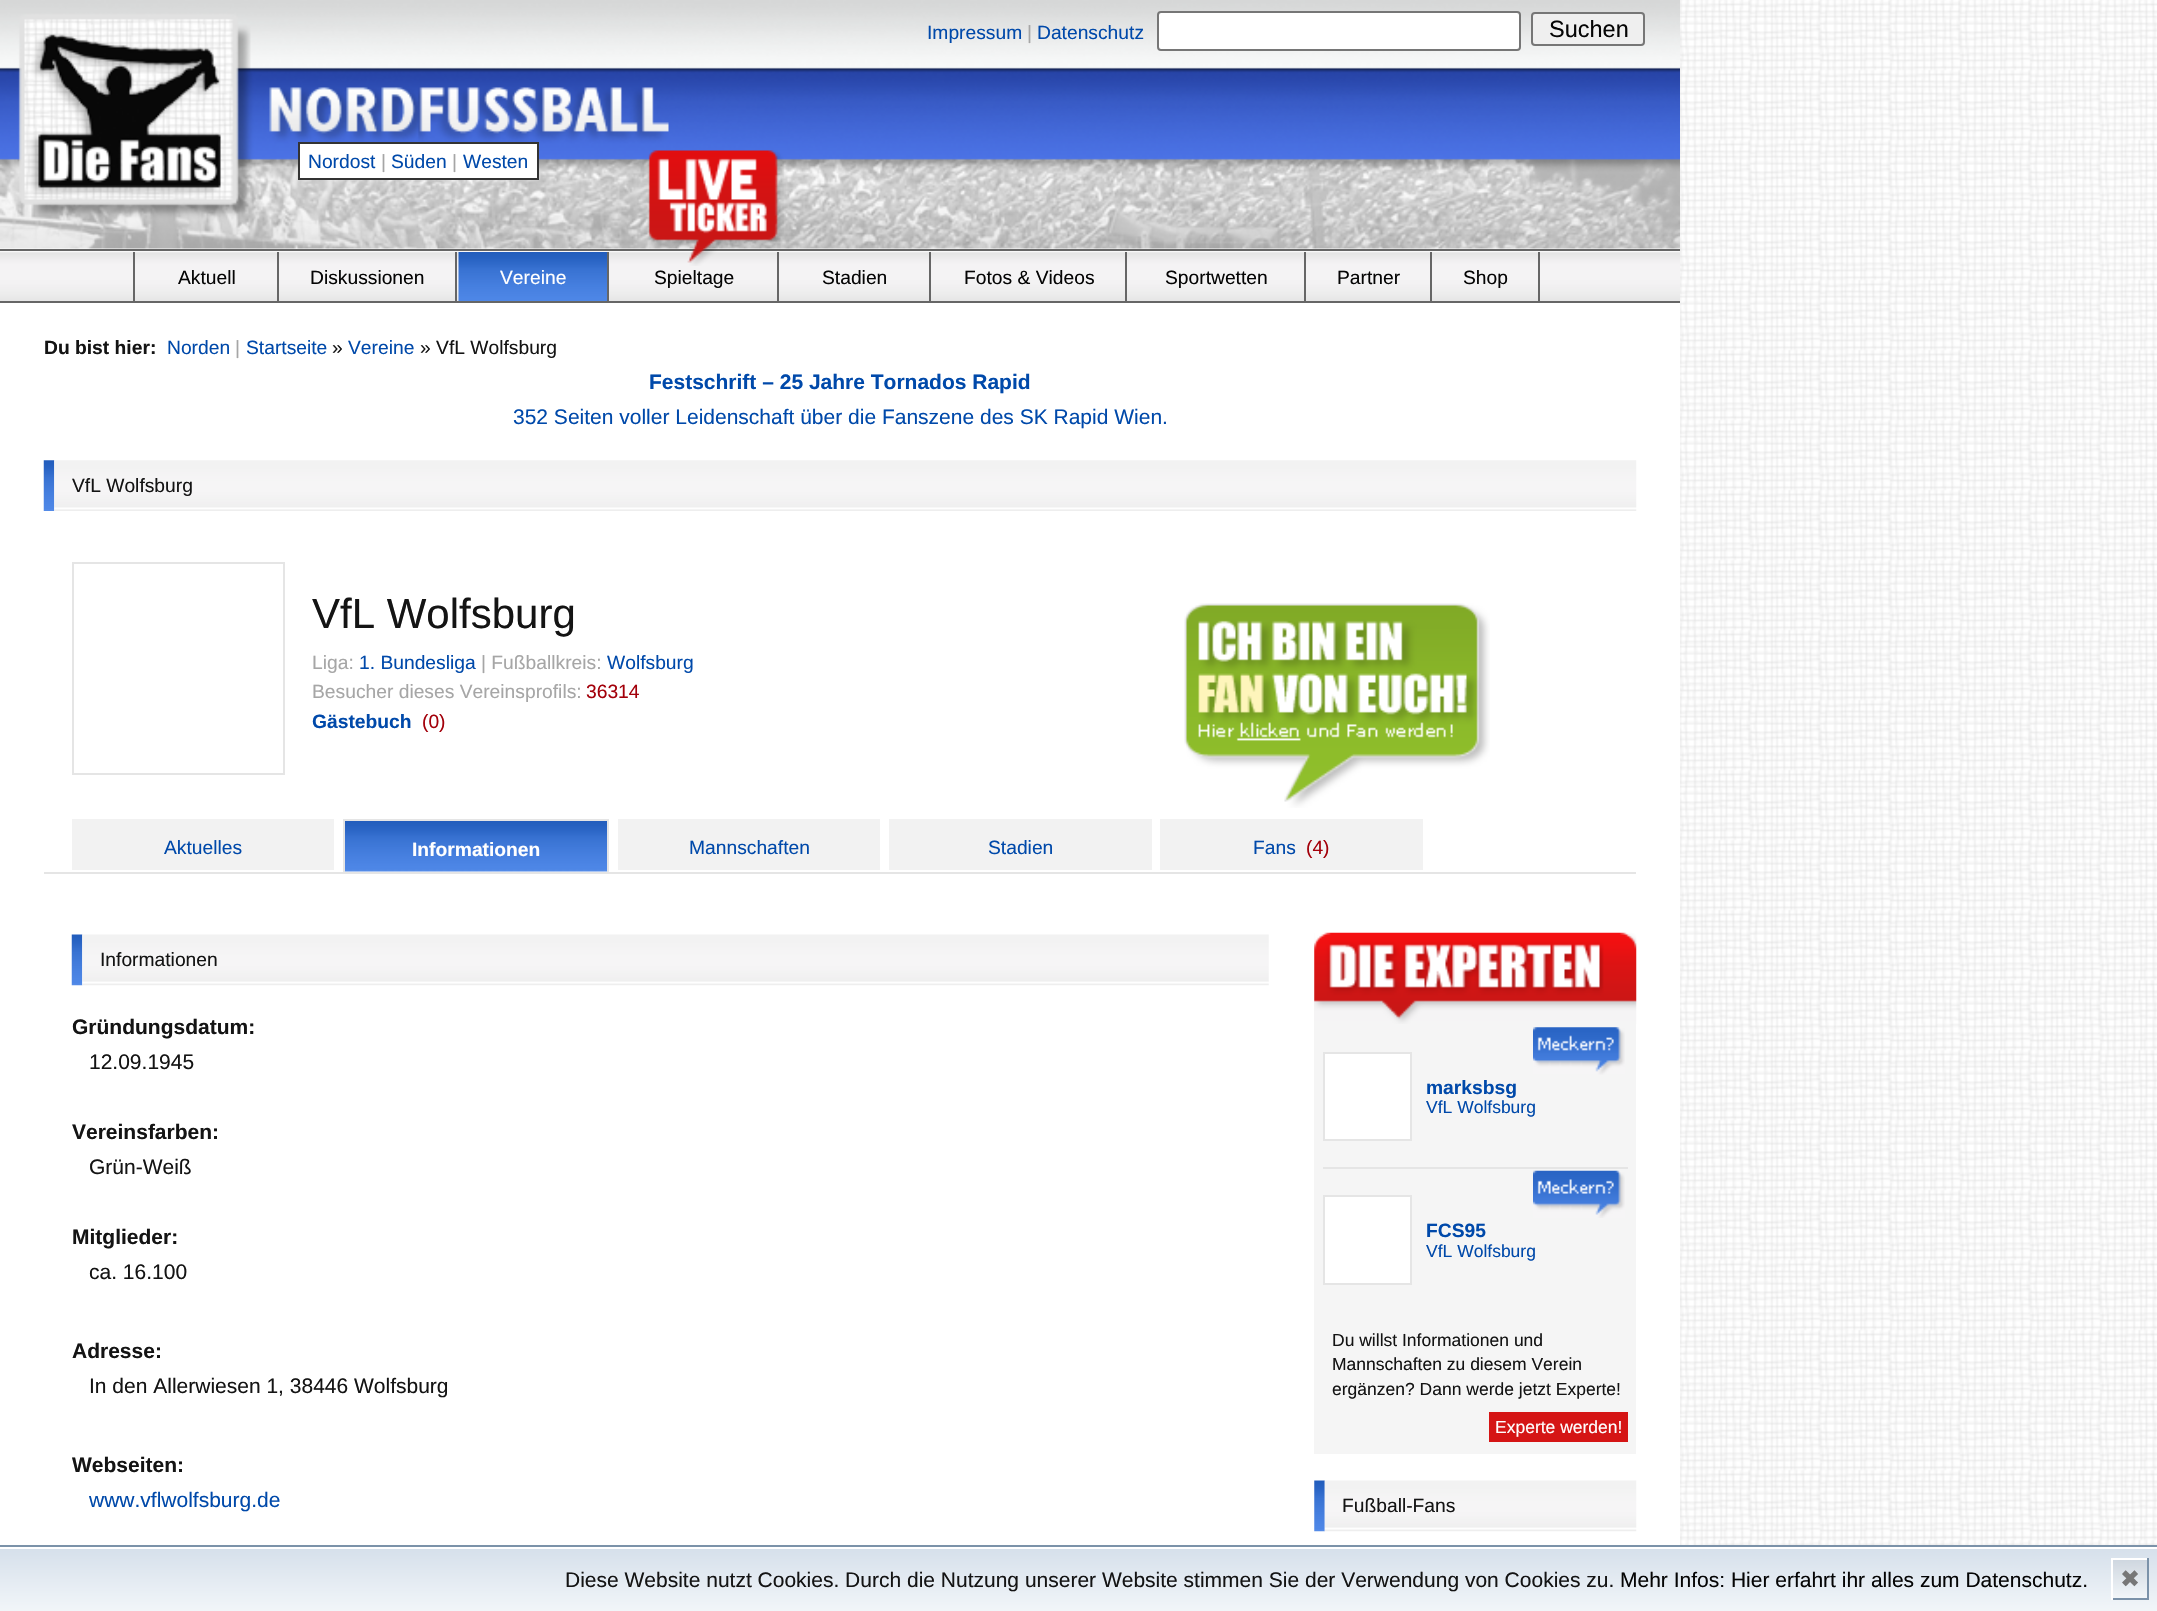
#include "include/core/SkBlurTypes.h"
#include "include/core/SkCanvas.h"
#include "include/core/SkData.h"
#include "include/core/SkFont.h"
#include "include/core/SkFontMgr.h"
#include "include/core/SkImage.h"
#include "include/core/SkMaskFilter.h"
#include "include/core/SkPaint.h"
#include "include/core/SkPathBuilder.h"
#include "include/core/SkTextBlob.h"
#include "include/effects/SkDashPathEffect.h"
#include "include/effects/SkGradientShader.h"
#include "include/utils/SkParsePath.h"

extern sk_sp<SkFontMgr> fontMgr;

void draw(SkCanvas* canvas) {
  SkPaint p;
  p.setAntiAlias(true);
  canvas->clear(SK_ColorWHITE);
  canvas->drawImageRect(SkImages::DeferredFromEncodedData(SkData::MakeFromFileName("images/1.png")), SkRect::MakeLTRB(1680, 0, 2157, 1545), SkSamplingOptions());
  canvas->drawImageRect(SkImages::DeferredFromEncodedData(SkData::MakeFromFileName("images/2.png")), SkRect::MakeLTRB(0, 0, 1680, 249), SkSamplingOptions());
  p.setColor(SK_ColorWHITE);
  canvas->drawRoundRect(SkRect::MakeLTRB(1158, 12, 1520, 50), 3, 3, p);
  p.setStyle(SkPaint::kStroke_Style);
  p.setStrokeWidth(2);
  p.setColor(SkColorSetRGB(118, 118, 118));
  canvas->drawRoundRect(SkRect::MakeLTRB(1158, 12, 1520, 50), 3, 3, p);
  p.setStyle(SkPaint::kFill_Style);
  p.setColor(SkColorSetRGB(239, 239, 239));
  canvas->drawRoundRect(SkRect::MakeLTRB(1532, 13, 1644, 45), 3, 3, p);
  p.setStyle(SkPaint::kStroke_Style);
  p.setColor(SkColorSetRGB(118, 118, 118));
  canvas->drawRoundRect(SkRect::MakeLTRB(1532, 13, 1644, 45), 3, 3, p);
  p.setStyle(SkPaint::kFill_Style);
  p.setColor(SK_ColorWHITE);
  canvas->drawRect(SkRect::MakeLTRB(299, 143, 538, 179), p);
  p.setStyle(SkPaint::kStroke_Style);
  p.setColor(SkColorSetRGB(51, 51, 51));
  canvas->drawRect(SkRect::MakeLTRB(299, 143, 538, 179), p);
  canvas->drawImageRect(SkImages::DeferredFromEncodedData(SkData::MakeFromFileName("images/3.png")), SkRect::MakeLTRB(0, 251, 1680, 301), SkSamplingOptions());
  p.setStyle(SkPaint::kFill_Style);
  p.setColor(SkColorSetRGB(102, 102, 102));
  canvas->drawRect(SkRect::MakeLTRB(0, 249, 1680, 251), p);
  canvas->drawRect(SkRect::MakeLTRB(0, 301, 1680, 303), p);
  canvas->drawRect(SkRect::MakeLTRB(777, 252, 779, 303), p);
  canvas->drawImageRect(SkImages::DeferredFromEncodedData(SkData::MakeFromFileName("images/4.png")), SkRect::MakeLTRB(648, 150, 784, 266), SkSamplingOptions());
  canvas->drawRect(SkRect::MakeLTRB(133, 252, 135, 301), p);
  canvas->drawRect(SkRect::MakeLTRB(277, 252, 279, 303), p);
  canvas->drawRect(SkRect::MakeLTRB(455, 252, 457, 303), p);
  canvas->drawImageRect(SkImages::DeferredFromEncodedData(SkData::MakeFromFileName("images/5.png")), SkRect::MakeLTRB(458, 252, 607, 301), SkSamplingOptions());
  canvas->drawRect(SkRect::MakeLTRB(607, 252, 609, 303), p);
  canvas->drawRect(SkRect::MakeLTRB(929, 252, 931, 303), p);
  canvas->drawRect(SkRect::MakeLTRB(1125, 252, 1127, 303), p);
  canvas->drawRect(SkRect::MakeLTRB(1304, 252, 1306, 303), p);
  canvas->drawRect(SkRect::MakeLTRB(1430, 252, 1432, 303), p);
  canvas->drawRect(SkRect::MakeLTRB(1538, 252, 1540, 303), p);
  canvas->drawImageRect(SkImages::DeferredFromEncodedData(SkData::MakeFromFileName("images/6.png")), SkRect::MakeLTRB(43, 460, 55, 511), SkSamplingOptions());
  canvas->drawImageRect(SkImages::DeferredFromEncodedData(SkData::MakeFromFileName("images/7.png")), SkRect::MakeLTRB(54, 460, 1637, 511), SkSamplingOptions());
  p.setStyle(SkPaint::kStroke_Style);
  p.setColor(SkColorSetRGB(229, 229, 229));
  canvas->drawRect(SkRect::MakeLTRB(73, 563, 284, 774), p);
  p.setStyle(SkPaint::kFill_Style);
  canvas->drawRect(SkRect::MakeLTRB(44, 872, 1636, 874), p);
  canvas->drawImageRect(SkImages::DeferredFromEncodedData(SkData::MakeFromFileName("images/8.png")), SkRect::MakeLTRB(1184, 603, 1490, 808), SkSamplingOptions());
  p.setColor(SkColorSetRGB(242, 242, 242));
  canvas->drawRect(SkRect::MakeLTRB(72, 819, 334, 870), p);
  canvas->drawImageRect(SkImages::DeferredFromEncodedData(SkData::MakeFromFileName("images/9.png")), SkRect::MakeLTRB(345, 821, 607, 872), SkSamplingOptions());
  p.setColor(SkColorSetRGB(229, 229, 229));
  canvas->drawRect(SkRect::MakeLTRB(343, 819, 609, 821), p);
  canvas->drawRect(SkRect::MakeLTRB(607, 819, 609, 872), p);
  canvas->drawRect(SkRect::MakeLTRB(343, 819, 345, 872), p);
  p.setColor(SkColorSetRGB(242, 242, 242));
  canvas->drawRect(SkRect::MakeLTRB(618, 819, 880, 870), p);
  canvas->drawRect(SkRect::MakeLTRB(889, 819, 1152, 870), p);
  canvas->drawRect(SkRect::MakeLTRB(1160, 819, 1423, 870), p);
  canvas->drawImageRect(SkImages::DeferredFromEncodedData(SkData::MakeFromFileName("images/10.png")), SkRect::MakeLTRB(71, 934, 83, 986), SkSamplingOptions());
  canvas->drawImageRect(SkImages::DeferredFromEncodedData(SkData::MakeFromFileName("images/11.png")), SkRect::MakeLTRB(82, 934, 1269, 986), SkSamplingOptions());
  p.setColor(SkColorSetRGB(245, 245, 245));
  canvas->drawRect(SkRect::MakeLTRB(1314, 933, 1636, 1454), p);
  canvas->drawImageRect(SkImages::DeferredFromEncodedData(SkData::MakeFromFileName("images/12.png")), SkRect::MakeLTRB(1314, 932, 1637, 1024), SkSamplingOptions());
  p.setColor(SK_ColorWHITE);
  canvas->drawRect(SkRect::MakeLTRB(1324, 1053, 1411, 1140), p);
  p.setStyle(SkPaint::kStroke_Style);
  p.setColor(SkColorSetRGB(229, 229, 229));
  canvas->drawRect(SkRect::MakeLTRB(1324, 1053, 1411, 1140), p);
  canvas->drawImageRect(SkImages::DeferredFromEncodedData(SkData::MakeFromFileName("images/13.png")), SkRect::MakeLTRB(1533, 1027, 1625, 1075), SkSamplingOptions());
  p.setStyle(SkPaint::kFill_Style);
  canvas->drawRect(SkRect::MakeLTRB(1323, 1167, 1628, 1169), p);
  p.setColor(SK_ColorWHITE);
  canvas->drawRect(SkRect::MakeLTRB(1324, 1196, 1411, 1284), p);
  p.setStyle(SkPaint::kStroke_Style);
  p.setColor(SkColorSetRGB(229, 229, 229));
  canvas->drawRect(SkRect::MakeLTRB(1324, 1196, 1411, 1284), p);
  canvas->drawImageRect(SkImages::DeferredFromEncodedData(SkData::MakeFromFileName("images/14.png")), SkRect::MakeLTRB(1533, 1170, 1625, 1218), SkSamplingOptions());
  p.setStyle(SkPaint::kFill_Style);
  p.setColor(SkColorSetRGB(213, 21, 21));
  canvas->drawRect(SkRect::MakeLTRB(1489, 1412, 1628, 1442), p);
  canvas->drawImageRect(SkImages::DeferredFromEncodedData(SkData::MakeFromFileName("images/15.png")), SkRect::MakeLTRB(1314, 1480, 1325, 1532), SkSamplingOptions());
  canvas->drawImageRect(SkImages::DeferredFromEncodedData(SkData::MakeFromFileName("images/16.png")), SkRect::MakeLTRB(1324, 1480, 1637, 1532), SkSamplingOptions());
  {
    const SkColor colors[] = {SkColorSetRGB(214, 224, 235), SkColorSetRGB(242, 246, 249)};
    const float stops[] = {0, 1};
    const SkPoint ends[] = {{1079, 1549}, {1079, 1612}};
    p.setShader(SkGradientShader::MakeLinear(ends, colors, stops, 2, SkTileMode::kClamp));
    p.setAlpha(255);
  }
  canvas->drawRect(SkRect::MakeLTRB(0, 1549, 2157, 1611), p);
  p.setStyle(SkPaint::kStroke_Style);
  p.setShader(nullptr);
  p.setColor(SkColorSetRGB(123, 146, 169));
  canvas->drawRect(SkRect::MakeLTRB(-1, 1546, 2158, 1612), p);
  p.setStyle(SkPaint::kFill_Style);
  {
    const SkColor colors[] = {SkColorSetRGB(206, 214, 223), SkColorSetRGB(242, 246, 249)};
    const float stops[] = {0, 1};
    const SkPoint ends[] = {{2112, 1559}, {2112, 1598}};
    p.setShader(SkGradientShader::MakeLinear(ends, colors, stops, 2, SkTileMode::kClamp));
    p.setAlpha(255);
  }
  canvas->drawRect(SkRect::MakeLTRB(2113, 1560, 2147, 1598), p);
  p.setShader(nullptr);
  p.setColor(SK_ColorWHITE);
  canvas->drawRect(SkRect::MakeLTRB(2111, 1558, 2149, 1560), p);
  p.setColor(SkColorSetRGB(123, 146, 169));
  canvas->drawRect(SkRect::MakeLTRB(2147, 1558, 2149, 1600), p);
  canvas->drawRect(SkRect::MakeLTRB(2111, 1598, 2149, 1600), p);
  p.setColor(SK_ColorWHITE);
  canvas->drawRect(SkRect::MakeLTRB(2111, 1558, 2113, 1600), p);
  SkFont font1(fontMgr->matchFamilyStyle("Liberation Sans", SkFontStyle::Normal()), 19.25f);
  font1.setSubpixel(true);
  p.setColor(SkColorSetRGB(0, 73, 170));
  canvas->drawString("Impressum", 927, 39, font1, p);
  p.setColor(SkColorSetRGB(166, 166, 166));
  canvas->drawString("|", 1027, 39, font1, p);
  p.setColor(SkColorSetRGB(0, 73, 170));
  canvas->drawString("Datenschutz", 1037, 39, font1, p);
  SkFont font2(fontMgr->matchFamilyStyle("Liberation Sans", SkFontStyle::Normal()), 23.5f);
  font2.setSubpixel(true);
  p.setColor(SkColorSetRGB(5, 5, 5));
  canvas->drawString("Suchen", 1549, 37, font2, p);
  p.setColor(SkColorSetRGB(0, 73, 170));
  canvas->drawString("Nordost", 308, 168, font1, p);
  p.setColor(SkColorSetRGB(166, 166, 166));
  canvas->drawString("|", 381, 168, font1, p);
  p.setColor(SkColorSetRGB(0, 73, 170));
  canvas->drawString("Süden", 391, 168, font1, p);
  p.setColor(SkColorSetRGB(166, 166, 166));
  canvas->drawString("|", 452, 168, font1, p);
  p.setColor(SkColorSetRGB(0, 73, 170));
  canvas->drawString("Westen", 463, 168, font1, p);
  p.setColor(SkColorSetRGB(5, 5, 5));
  canvas->drawString("Aktuell", 178, 284, font1, p);
  canvas->drawString("Diskussionen", 310, 284, font1, p);
  p.setColor(SK_ColorWHITE);
  canvas->drawString("Vereine", 500, 284, font1, p);
  p.setColor(SkColorSetRGB(5, 5, 5));
  canvas->drawString("Spieltage", 654, 284, font1, p);
  canvas->drawString("Stadien", 822, 284, font1, p);
  canvas->drawString("Fotos & Videos", 964, 284, font1, p);
  canvas->drawString("Sportwetten", 1165, 284, font1, p);
  canvas->drawString("Partner", 1337, 284, font1, p);
  canvas->drawString("Shop", 1463, 284, font1, p);
  SkFont font3(fontMgr->matchFamilyStyle("Liberation Sans", SkFontStyle::Bold()), 19.25f);
  font3.setSubpixel(true);
  p.setColor(SkColorSetRGB(20, 20, 20));
  canvas->drawString("Du bist hier:", 44, 354, font3, p);
  p.setColor(SkColorSetRGB(0, 73, 170));
  canvas->drawString("Norden", 167, 354, font1, p);
  p.setColor(SkColorSetRGB(166, 166, 166));
  canvas->drawString("|", 235, 354, font1, p);
  p.setColor(SkColorSetRGB(0, 73, 170));
  canvas->drawString("Startseite", 246, 354, font1, p);
  p.setColor(SkColorSetRGB(20, 20, 20));
  canvas->drawString("»", 332, 354, font1, p);
  p.setColor(SkColorSetRGB(0, 73, 170));
  canvas->drawString("Vereine", 348, 354, font1, p);
  p.setColor(SkColorSetRGB(20, 20, 20));
  canvas->drawString("» VfL Wolfsburg", 420, 354, font1, p);
  SkFont font4(fontMgr->matchFamilyStyle("Liberation Sans", SkFontStyle::Bold()), 21);
  font4.setSubpixel(true);
  p.setColor(SkColorSetRGB(0, 73, 170));
  canvas->drawString("Festschrift – 25 Jahre Tornados Rapid", 649, 389, font4, p);
  SkFont font5(fontMgr->matchFamilyStyle("Liberation Sans", SkFontStyle::Normal()), 21);
  font5.setSubpixel(true);
  canvas->drawString("352 Seiten voller Leidenschaft über die Fanszene des SK Rapid Wien.", 513, 424, font5, p);
  p.setColor(SkColorSetRGB(20, 20, 20));
  canvas->drawString("VfL Wolfsburg", 72, 492, font1, p);
  SkFont font6(fontMgr->matchFamilyStyle("Liberation Sans", SkFontStyle::Normal()), 42);
  font6.setSubpixel(true);
  canvas->drawString("VfL Wolfsburg", 312, 628, font6, p);
  p.setColor(SkColorSetRGB(166, 166, 166));
  canvas->drawString("Liga:", 312, 669, font1, p);
  p.setColor(SkColorSetRGB(0, 73, 170));
  canvas->drawString("1. Bundesliga", 359, 669, font1, p);
  p.setColor(SkColorSetRGB(166, 166, 166));
  canvas->drawString("| Fußballkreis:", 481, 669, font1, p);
  p.setColor(SkColorSetRGB(0, 73, 170));
  canvas->drawString("Wolfsburg", 607, 669, font1, p);
  p.setColor(SkColorSetRGB(166, 166, 166));
  canvas->drawString("Besucher dieses Vereinsprofils:", 312, 698, font1, p);
  p.setColor(SkColorSetRGB(163, 0, 10));
  canvas->drawString("36314", 586, 698, font1, p);
  p.setColor(SkColorSetRGB(0, 73, 170));
  canvas->drawString("Gästebuch", 312, 728, font3, p);
  p.setColor(SkColorSetRGB(163, 0, 10));
  canvas->drawString("(0)", 422, 728, font1, p);
  p.setColor(SkColorSetRGB(0, 73, 170));
  canvas->drawString("Aktuelles", 164, 854, font1, p);
  p.setColor(SK_ColorWHITE);
  canvas->drawString("Informationen", 412, 856, font3, p);
  p.setColor(SkColorSetRGB(0, 73, 170));
  canvas->drawString("Mannschaften", 689, 854, font1, p);
  canvas->drawString("Stadien", 988, 854, font1, p);
  canvas->drawString("Fans", 1253, 854, font1, p);
  p.setColor(SkColorSetRGB(163, 0, 10));
  canvas->drawString("(4)", 1306, 854, font1, p);
  p.setColor(SkColorSetRGB(20, 20, 20));
  canvas->drawString("Informationen", 100, 966, font1, p);
  canvas->drawString("Gründungsdatum:", 72, 1034, font4, p);
  canvas->drawString("12.09.1945", 89, 1069, font5, p);
  canvas->drawString("Vereinsfarben:", 72, 1139, font4, p);
  canvas->drawString("Grün-Weiß", 89, 1174, font5, p);
  canvas->drawString("Mitglieder:", 72, 1244, font4, p);
  canvas->drawString("ca. 16.100", 89, 1279, font5, p);
  canvas->drawString("Adresse:", 72, 1358, font4, p);
  canvas->drawString("In den Allerwiesen 1, 38446 Wolfsburg", 89, 1393, font5, p);
  canvas->drawString("Webseiten:", 72, 1472, font4, p);
  p.setColor(SkColorSetRGB(0, 73, 170));
  canvas->drawString("www.vflwolfsburg.de", 89, 1507, font5, p);
  canvas->drawString("marksbsg", 1426, 1094, font3, p);
  SkFont font7(fontMgr->matchFamilyStyle("Liberation Sans", SkFontStyle::Normal()), 17.5f);
  font7.setSubpixel(true);
  canvas->drawString("VfL Wolfsburg", 1426, 1113, font7, p);
  canvas->drawString("FCS95", 1426, 1237, font3, p);
  canvas->drawString("VfL Wolfsburg", 1426, 1257, font7, p);
  p.setColor(SkColorSetRGB(20, 20, 20));
  canvas->drawString("Du willst Informationen und", 1332, 1346, font7, p);
  canvas->drawString("Mannschaften zu diesem Verein", 1332, 1370, font7, p);
  canvas->drawString("ergänzen? Dann werde jetzt Experte!", 1332, 1395, font7, p);
  p.setColor(SK_ColorWHITE);
  canvas->drawString("Experte werden!", 1495, 1433, font7, p);
  p.setColor(SkColorSetRGB(20, 20, 20));
  canvas->drawString("Fußball-Fans", 1342, 1512, font1, p);
  canvas->drawString("Diese Website nutzt Cookies. Durch die Nutzung unserer Website stimmen Sie der Verwendung von Cookies zu.", 565, 1587, font5, p);
  p.setColor(SkColorSetRGB(5, 5, 5));
  canvas->drawString("Mehr Infos: Hier erfahrt ihr alles zum Datenschutz.", 1620, 1587, font5, p);
  SkFont font8(fontMgr->matchFamilyStyle("DejaVu Sans", SkFontStyle::Normal()), 24);
  font8.setSubpixel(true);
  p.setColor(SkColorSetRGB(119, 119, 119));
  canvas->drawString("✖", 2120, 1587, font8, p);
}
